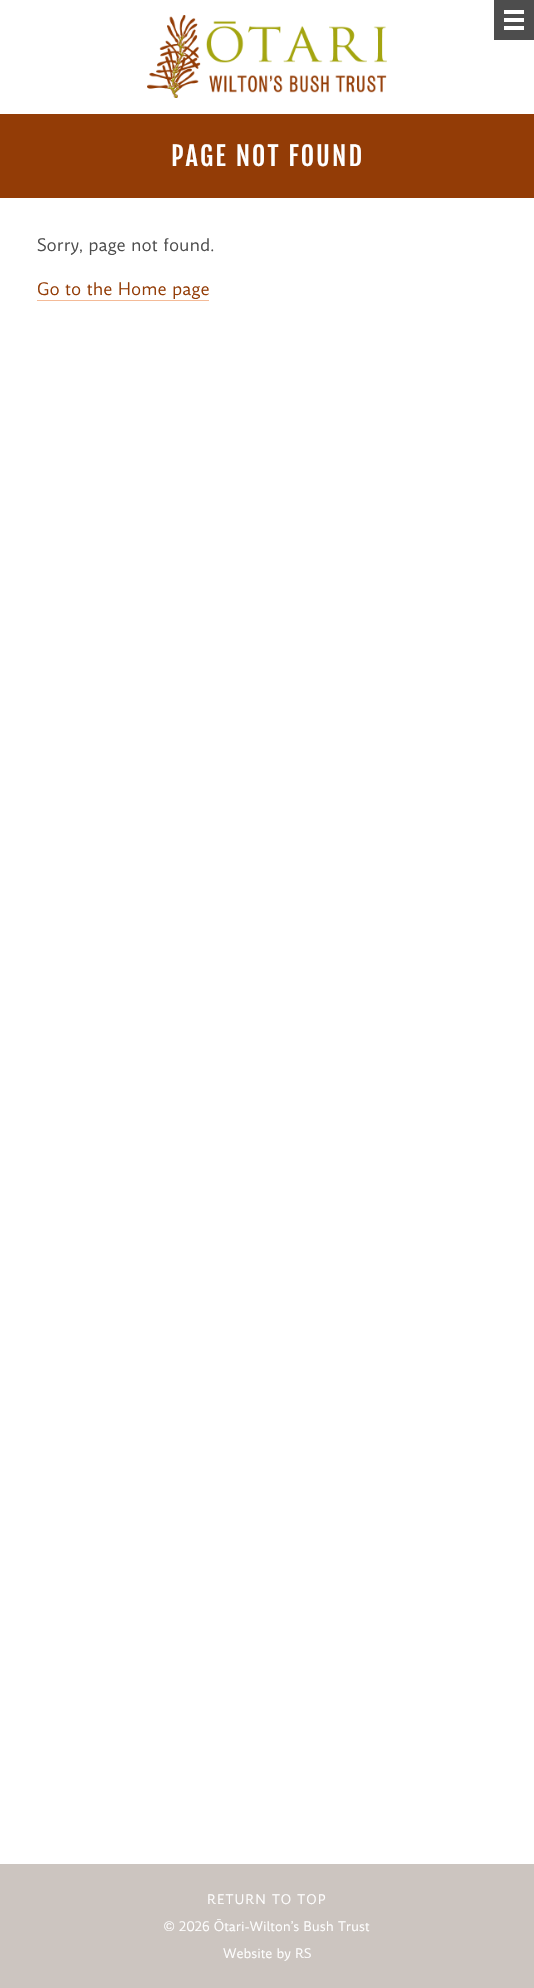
#include "include/core/SkBlurTypes.h"
#include "include/core/SkCanvas.h"
#include "include/core/SkData.h"
#include "include/core/SkFont.h"
#include "include/core/SkFontMgr.h"
#include "include/core/SkImage.h"
#include "include/core/SkMaskFilter.h"
#include "include/core/SkPaint.h"
#include "include/core/SkPathBuilder.h"
#include "include/core/SkTextBlob.h"
#include "include/effects/SkDashPathEffect.h"
#include "include/effects/SkGradientShader.h"
#include "include/utils/SkParsePath.h"

extern sk_sp<SkFontMgr> fontMgr;

void draw(SkCanvas* canvas) {
  SkPaint p;
  p.setAntiAlias(true);
  auto spacedText = [&](const char* s, float x, float y, const SkFont& font, const SkPaint& ink, float letter, float word) {
    std::vector<SkGlyphID> glyphs(font.countText(s, strlen(s), SkTextEncoding::kUTF8));
    std::vector<float> xs(glyphs.size());
    font.textToGlyphs(s, strlen(s), SkTextEncoding::kUTF8, glyphs);
    font.getXPos(glyphs, xs, x);
    float extra = 0;
    for (size_t i = 0; i < glyphs.size(); i++) {
      xs[i] += extra;
      extra += letter + word * (glyphs[i] == font.unicharToGlyph(' '));
    }
    canvas->drawTextBlob(SkTextBlob::MakeFromPosHGlyphs(glyphs, xs, y, font), 0, 0, ink);
  };
  canvas->clear(SK_ColorWHITE);
  p.setColor(SkColorSetRGB(77, 77, 77));
  canvas->drawRect(SkRect::MakeLTRB(494, 0, 534, 40), p);
  p.setColor(SK_ColorWHITE);
  canvas->drawRect(SkRect::MakeLTRB(504, 18, 524, 22), p);
  canvas->drawRect(SkRect::MakeLTRB(504, 10, 524, 14), p);
  canvas->drawRect(SkRect::MakeLTRB(504, 26, 524, 30), p);
  canvas->drawImageRect(SkImages::DeferredFromEncodedData(SkData::MakeFromFileName("images/1.png")), SkRect::MakeLTRB(147, 15, 387, 98), SkSamplingOptions());
  p.setColor(SkColorSetRGB(147, 60, 6));
  canvas->drawRect(SkRect::MakeLTRB(0, 114, 534, 198), p);
  p.setColor(SkColorSetRGB(244, 187, 152));
  canvas->drawRect(SkRect::MakeLTRB(37, 300, 209, 301), p);
  p.setColor(SkColorSetRGB(204, 197, 192));
  canvas->drawRect(SkRect::MakeLTRB(0, 1864, 534, 1988), p);
  SkFont font1(fontMgr->matchFamilyStyle("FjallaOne", SkFontStyle::Normal()), 26);
  font1.setSubpixel(true);
  p.setColor(SK_ColorWHITE);
  spacedText("PAGE NOT FOUND", 171, 166, font1, p, 2.1f, 0);
  SkFont font2(fontMgr->matchFamilyStyle("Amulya", SkFontStyle::Normal()), 17);
  font2.setSubpixel(true);
  p.setColor(SkColorSetRGB(77, 77, 77));
  canvas->drawString("Sorry, page not found.", 37, 251, font2, p);
  p.setColor(SkColorSetRGB(147, 60, 6));
  canvas->drawString("Go to the Home page", 37, 295, font2, p);
  SkFont font3(fontMgr->matchFamilyStyle("Amulya", SkFontStyle::Normal()), 13);
  font3.setSubpixel(true);
  p.setColor(SK_ColorWHITE);
  spacedText("RETURN TO TOP", 207, 1904, font3, p, 1, 0);
  SkFont font4(fontMgr->matchFamilyStyle("Liberation Sans", SkFontStyle::Normal()), 14);
  font4.setSubpixel(true);
  canvas->drawString("©", 164, 1931, font4, p);
  canvas->drawString("2026 Ōtari-Wilton’s Bush Trust", 179, 1931, font3, p);
  canvas->drawString("Website by RS", 223, 1958, font3, p);
}
